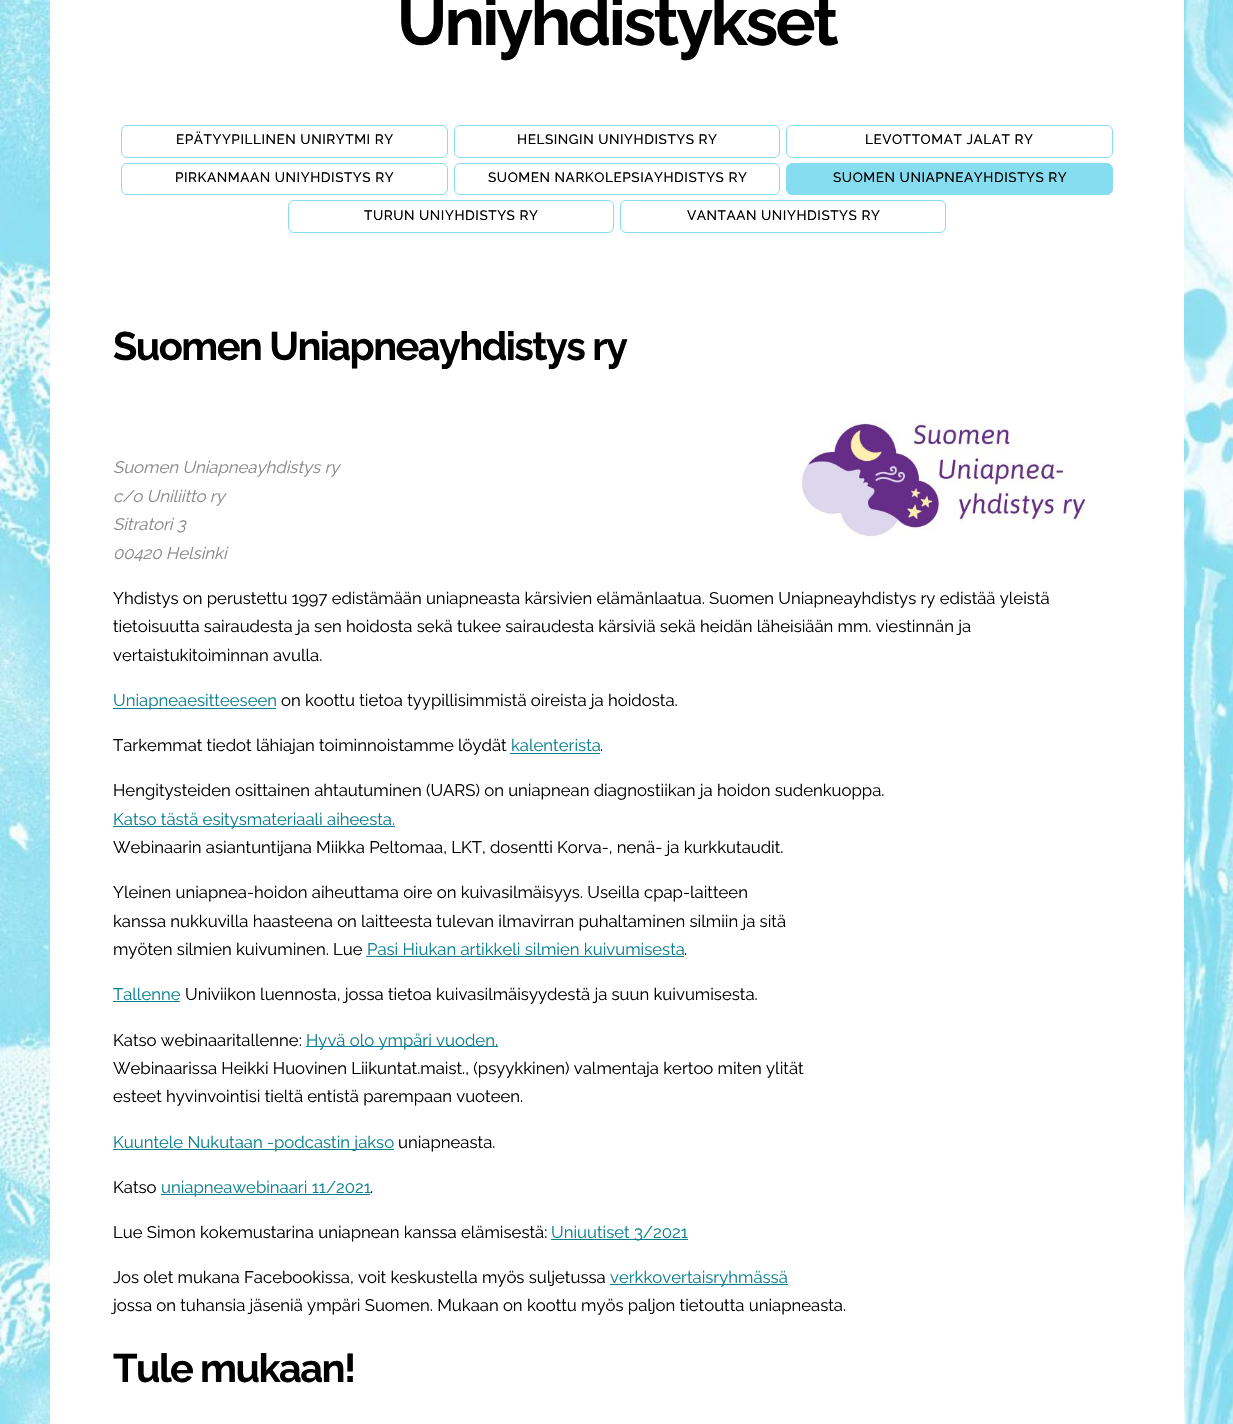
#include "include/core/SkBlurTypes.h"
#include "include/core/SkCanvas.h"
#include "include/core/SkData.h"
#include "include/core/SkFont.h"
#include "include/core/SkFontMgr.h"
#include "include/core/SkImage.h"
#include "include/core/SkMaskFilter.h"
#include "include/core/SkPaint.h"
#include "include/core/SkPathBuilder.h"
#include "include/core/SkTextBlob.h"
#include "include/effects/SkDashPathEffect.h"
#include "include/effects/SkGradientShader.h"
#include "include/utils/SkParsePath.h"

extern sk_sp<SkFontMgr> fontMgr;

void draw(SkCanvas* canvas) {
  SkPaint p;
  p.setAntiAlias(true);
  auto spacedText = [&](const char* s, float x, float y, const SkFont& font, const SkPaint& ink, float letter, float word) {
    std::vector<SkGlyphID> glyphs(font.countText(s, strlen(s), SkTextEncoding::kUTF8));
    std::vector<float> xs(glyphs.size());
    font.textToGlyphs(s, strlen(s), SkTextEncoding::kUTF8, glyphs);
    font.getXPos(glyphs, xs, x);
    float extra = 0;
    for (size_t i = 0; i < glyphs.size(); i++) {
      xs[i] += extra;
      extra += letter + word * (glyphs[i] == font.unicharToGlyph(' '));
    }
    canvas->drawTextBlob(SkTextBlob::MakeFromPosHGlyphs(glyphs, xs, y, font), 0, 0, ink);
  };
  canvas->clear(SK_ColorWHITE);
  canvas->drawImageRect(SkImages::DeferredFromEncodedData(SkData::MakeFromFileName("images/1.png")), SkRect::MakeLTRB(0, 0, 1233, 1424), SkSamplingOptions());
  p.setColor(SK_ColorWHITE);
  canvas->drawRect(SkRect::MakeLTRB(50, 0, 1184, 1424), p);
  p.setStyle(SkPaint::kStroke_Style);
  p.setStrokeWidth(1);
  p.setColor(SkColorSetRGB(134, 221, 240));
  canvas->drawRoundRect(SkRect::MakeLTRB(121.5f, 125.5f, 447.5f, 157.5f), 5.5f, 5.5f, p);
  canvas->drawRoundRect(SkRect::MakeLTRB(454.5f, 125.5f, 779.5f, 157.5f), 5.5f, 5.5f, p);
  canvas->drawRoundRect(SkRect::MakeLTRB(786.5f, 125.5f, 1112.5f, 157.5f), 5.5f, 5.5f, p);
  canvas->drawRoundRect(SkRect::MakeLTRB(121.5f, 163.5f, 447.5f, 194.5f), 5.5f, 5.5f, p);
  canvas->drawRoundRect(SkRect::MakeLTRB(454.5f, 163.5f, 779.5f, 194.5f), 5.5f, 5.5f, p);
  p.setStyle(SkPaint::kFill_Style);
  canvas->drawRoundRect(SkRect::MakeLTRB(786.5f, 163.5f, 1112.5f, 194.5f), 5.5f, 5.5f, p);
  p.setStyle(SkPaint::kStroke_Style);
  canvas->drawRoundRect(SkRect::MakeLTRB(786.5f, 163.5f, 1112.5f, 194.5f), 5.5f, 5.5f, p);
  canvas->drawRoundRect(SkRect::MakeLTRB(288.5f, 200.5f, 613.5f, 232.5f), 5.5f, 5.5f, p);
  canvas->drawRoundRect(SkRect::MakeLTRB(620.5f, 200.5f, 945.5f, 232.5f), 5.5f, 5.5f, p);
  canvas->drawImageRect(SkImages::DeferredFromEncodedData(SkData::MakeFromFileName("images/2.png")), SkRect::MakeLTRB(801, 419, 1087, 540), SkSamplingOptions());
  p.setStyle(SkPaint::kFill_Style);
  p.setColor(SkColorSetRGB(10, 128, 143));
  canvas->drawRect(SkRect::MakeLTRB(113, 708, 276, 709), p);
  canvas->drawRect(SkRect::MakeLTRB(510, 753, 600, 754), p);
  canvas->drawRect(SkRect::MakeLTRB(113, 826, 395, 827), p);
  canvas->drawRect(SkRect::MakeLTRB(366, 956, 684, 957), p);
  canvas->drawRect(SkRect::MakeLTRB(113, 1001, 180, 1002), p);
  canvas->drawRect(SkRect::MakeLTRB(306, 1046, 498, 1047), p);
  canvas->drawRect(SkRect::MakeLTRB(113, 1149, 394, 1150), p);
  canvas->drawRect(SkRect::MakeLTRB(161, 1194, 370, 1195), p);
  canvas->drawRect(SkRect::MakeLTRB(551, 1239, 688, 1240), p);
  canvas->drawRect(SkRect::MakeLTRB(610, 1284, 788, 1285), p);
  SkFont font1(fontMgr->matchFamilyStyle("Raleway", SkFontStyle::Bold()), 67);
  font1.setSubpixel(true);
  p.setColor(SK_ColorBLACK);
  spacedText("Uniyhdistykset", 397, 45, font1, p, -2.75f, 0);
  SkFont font2(fontMgr->matchFamilyStyle("Raleway", SkFontStyle(500, SkFontStyle::kNormal_Width, SkFontStyle::kUpright_Slant)), 13.6f);
  font2.setSubpixel(true);
  spacedText("EPÄTYYPILLINEN UNIRYTMI RY", 176, 144, font2, p, 0.55f, 0);
  spacedText("HELSINGIN UNIYHDISTYS RY", 517, 144, font2, p, 0.55f, 0);
  spacedText("LEVOTTOMAT JALAT RY", 865, 144, font2, p, 0.55f, 0);
  spacedText("PIRKANMAAN UNIYHDISTYS RY", 175, 182, font2, p, 0.55f, 0);
  spacedText("SUOMEN NARKOLEPSIAYHDISTYS RY", 488, 182, font2, p, 0.55f, 0);
  spacedText("SUOMEN UNIAPNEAYHDISTYS RY", 833, 182, font2, p, 0.55f, 0);
  spacedText("TURUN UNIYHDISTYS RY", 364, 220, font2, p, 0.55f, 0);
  spacedText("VANTAAN UNIYHDISTYS RY", 687, 220, font2, p, 0.55f, 0);
  SkFont font3(fontMgr->matchFamilyStyle("Raleway", SkFontStyle::Bold()), 39.75f);
  font3.setSubpixel(true);
  spacedText("Suomen Uniapneayhdistys ry", 113, 360, font3, p, -1.6f, 0);
  SkFont font4(fontMgr->matchFamilyStyle("Raleway", SkFontStyle::Italic()), 16.73f);
  font4.setSubpixel(true);
  p.setColor(SkColorSetRGB(136, 136, 136));
  canvas->drawString("Suomen Uniapneayhdistys ry", 113, 473, font4, p);
  canvas->drawString("c/o Uniliitto ry", 113, 502, font4, p);
  canvas->drawString("Sitratori 3", 113, 530, font4, p);
  canvas->drawString("00420 Helsinki", 113, 559, font4, p);
  SkFont font5(fontMgr->matchFamilyStyle("Raleway", SkFontStyle::Normal()), 16.73f);
  font5.setSubpixel(true);
  p.setColor(SK_ColorBLACK);
  canvas->drawString("Yhdistys on perustettu 1997 edistämään uniapneasta kärsivien elämänlaatua. Suomen Uniapneayhdistys ry edistää yleistä", 113, 604, font5, p);
  canvas->drawString("tietoisuutta sairaudesta ja sen hoidosta sekä tukee sairaudesta kärsiviä sekä heidän läheisiään mm. viestinnän ja", 113, 632, font5, p);
  canvas->drawString("vertaistukitoiminnan avulla.", 113, 661, font5, p);
  p.setColor(SkColorSetRGB(10, 128, 143));
  canvas->drawString("Uniapneaesitteeseen", 113, 706, font5, p);
  p.setColor(SK_ColorBLACK);
  canvas->drawString("on koottu tietoa tyypillisimmistä oireista ja hoidosta.", 281, 706, font5, p);
  canvas->drawString("Tarkemmat tiedot lähiajan toiminnoistamme löydät", 113, 751, font5, p);
  p.setColor(SkColorSetRGB(10, 128, 143));
  canvas->drawString("kalenterista", 511, 751, font5, p);
  p.setColor(SK_ColorBLACK);
  canvas->drawString(".", 600, 751, font5, p);
  canvas->drawString("Hengitysteiden osittainen ahtautuminen (UARS) on uniapnean diagnostiikan ja hoidon sudenkuoppa.", 113, 796, font5, p);
  p.setColor(SkColorSetRGB(10, 128, 143));
  canvas->drawString("Katso tästä esitysmateriaali aiheesta.", 113, 825, font5, p);
  p.setColor(SK_ColorBLACK);
  canvas->drawString("Webinaarin asiantuntijana Miikka Peltomaa, LKT, dosentti Korva-, nenä- ja kurkkutaudit.", 113, 853, font5, p);
  canvas->drawString("Yleinen uniapnea-hoidon aiheuttama oire on kuivasilmäisyys. Useilla cpap-laitteen", 113, 898, font5, p);
  canvas->drawString("kanssa nukkuvilla haasteena on laitteesta tulevan ilmavirran puhaltaminen silmiin ja sitä", 113, 927, font5, p);
  canvas->drawString("myöten silmien kuivuminen. Lue", 113, 955, font5, p);
  p.setColor(SkColorSetRGB(10, 128, 143));
  canvas->drawString("Pasi Hiukan artikkeli silmien kuivumisesta", 367, 955, font5, p);
  p.setColor(SK_ColorBLACK);
  canvas->drawString(".", 684, 955, font5, p);
  p.setColor(SkColorSetRGB(10, 128, 143));
  canvas->drawString("Tallenne", 113, 1000, font5, p);
  p.setColor(SK_ColorBLACK);
  canvas->drawString("Univiikon luennosta, jossa tietoa kuivasilmäisyydestä ja suun kuivumisesta.", 185, 1000, font5, p);
  canvas->drawString("Katso webinaaritallenne:", 113, 1046, font5, p);
  p.setColor(SkColorSetRGB(10, 128, 143));
  canvas->drawString("Hyvä olo ympäri vuoden.", 306, 1046, font5, p);
  p.setColor(SK_ColorBLACK);
  canvas->drawString("Webinaarissa Heikki Huovinen Liikuntat.maist., (psyykkinen) valmentaja kertoo miten ylität", 113, 1074, font5, p);
  canvas->drawString("esteet hyvinvointisi tieltä entistä parempaan vuoteen.", 113, 1102, font5, p);
  p.setColor(SkColorSetRGB(10, 128, 143));
  canvas->drawString("Kuuntele Nukutaan -podcastin jakso", 113, 1148, font5, p);
  p.setColor(SK_ColorBLACK);
  canvas->drawString("uniapneasta.", 398, 1148, font5, p);
  canvas->drawString("Katso", 113, 1193, font5, p);
  p.setColor(SkColorSetRGB(10, 128, 143));
  canvas->drawString("uniapneawebinaari 11/2021", 161, 1193, font5, p);
  p.setColor(SK_ColorBLACK);
  canvas->drawString(".", 370, 1193, font5, p);
  canvas->drawString("Lue Simon kokemustarina uniapnean kanssa elämisestä:", 113, 1238, font5, p);
  p.setColor(SkColorSetRGB(10, 128, 143));
  canvas->drawString("Uniuutiset 3/2021", 551, 1238, font5, p);
  p.setColor(SK_ColorBLACK);
  canvas->drawString("Jos olet mukana Facebookissa, voit keskustella myös suljetussa", 113, 1283, font5, p);
  p.setColor(SkColorSetRGB(10, 128, 143));
  canvas->drawString("verkkovertaisryhmässä", 610, 1283, font5, p);
  p.setColor(SK_ColorBLACK);
  canvas->drawString("jossa on tuhansia jäseniä ympäri Suomen. Mukaan on koottu myös paljon tietoutta uniapneasta.", 113, 1311, font5, p);
  spacedText("Tule mukaan!", 113, 1382, font3, p, -1.6f, 0);
}
